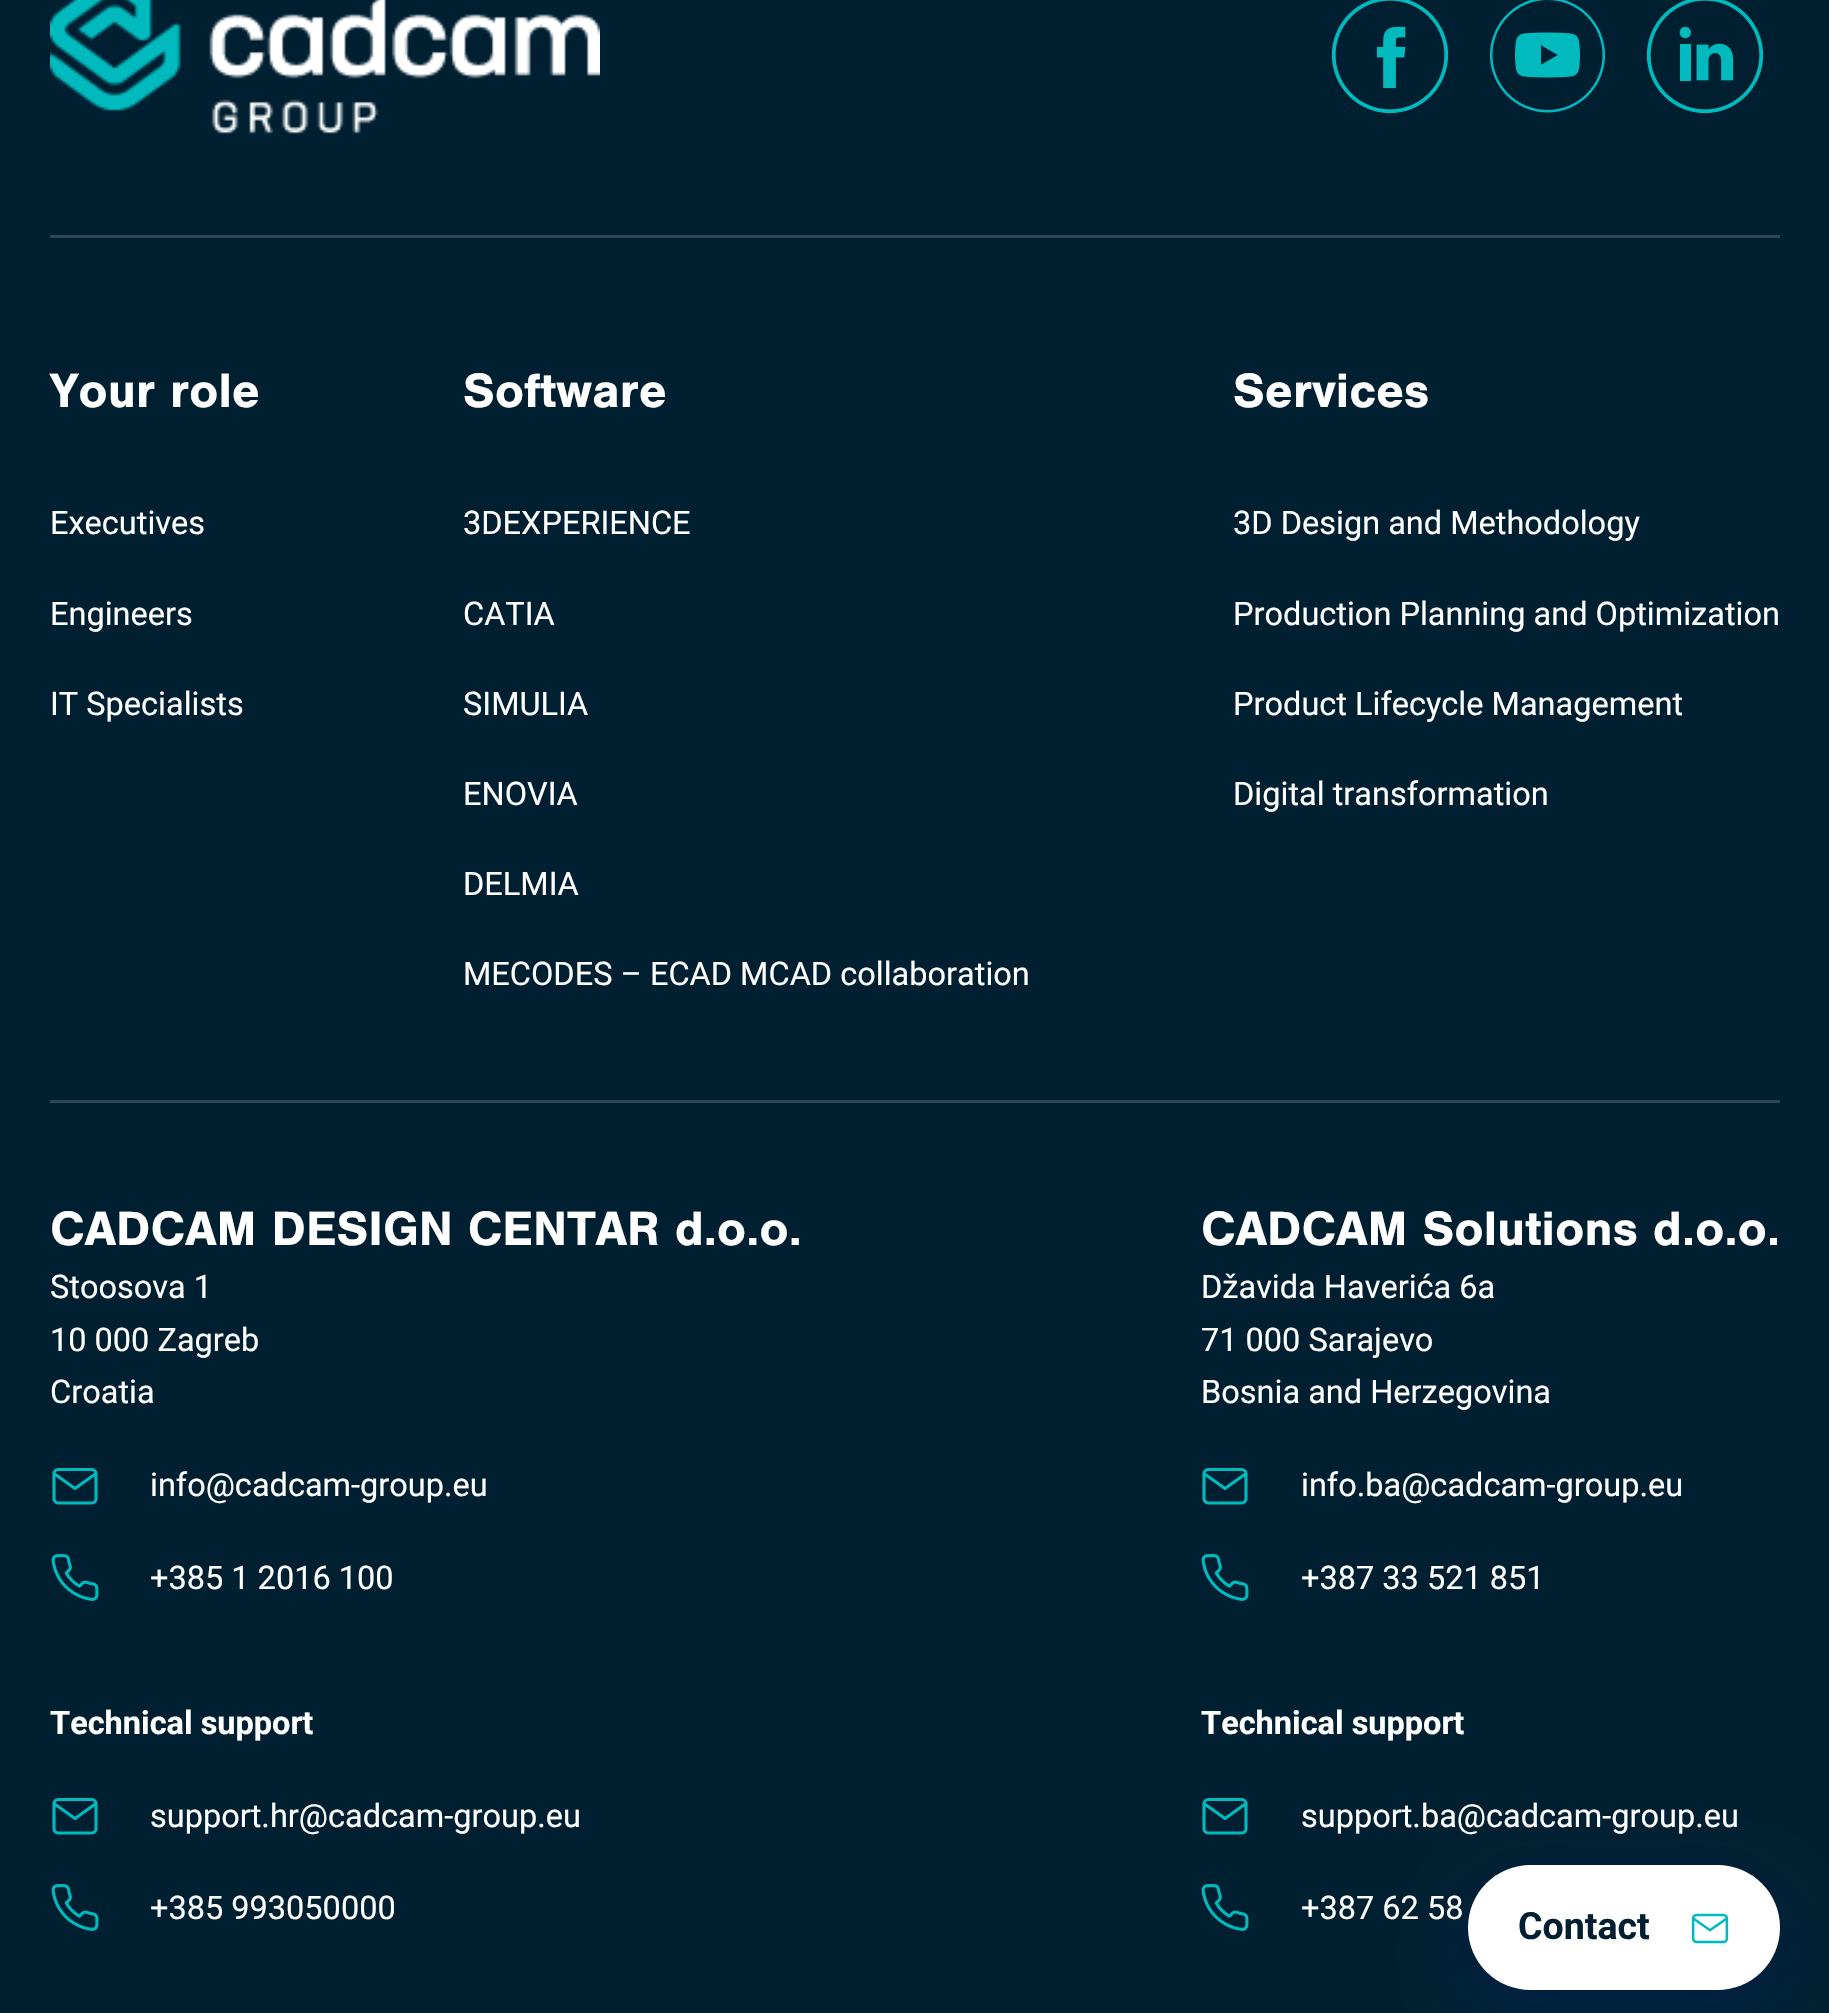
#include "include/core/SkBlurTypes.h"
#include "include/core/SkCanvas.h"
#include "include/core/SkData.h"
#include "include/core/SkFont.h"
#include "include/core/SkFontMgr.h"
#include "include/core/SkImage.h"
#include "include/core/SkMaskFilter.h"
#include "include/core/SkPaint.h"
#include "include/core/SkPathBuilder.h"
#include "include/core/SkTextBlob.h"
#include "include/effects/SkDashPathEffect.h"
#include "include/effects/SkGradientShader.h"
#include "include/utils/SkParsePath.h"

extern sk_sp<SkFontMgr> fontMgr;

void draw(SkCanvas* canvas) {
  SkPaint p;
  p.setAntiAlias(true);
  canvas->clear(SkColorSetRGB(0, 32, 50));
  p.setColor(SkColorSetRGB(43, 69, 84));
  canvas->drawRect(SkRect::MakeLTRB(50, 235, 1780, 238), p);
  canvas->drawImageRect(SkImages::DeferredFromEncodedData(SkData::MakeFromFileName("images/1.png")), SkRect::MakeLTRB(50, 0, 600, 134), SkSamplingOptions());
  canvas->drawImageRect(SkImages::DeferredFromEncodedData(SkData::MakeFromFileName("images/2.png")), SkRect::MakeLTRB(1331, 0, 1449, 114), SkSamplingOptions());
  canvas->drawImageRect(SkImages::DeferredFromEncodedData(SkData::MakeFromFileName("images/3.png")), SkRect::MakeLTRB(1490, 0, 1605, 113), SkSamplingOptions());
  canvas->drawImageRect(SkImages::DeferredFromEncodedData(SkData::MakeFromFileName("images/4.png")), SkRect::MakeLTRB(1646, 0, 1764, 114), SkSamplingOptions());
  canvas->drawRect(SkRect::MakeLTRB(50, 1100, 1780, 1103), p);
  p.setStyle(SkPaint::kStroke_Style);
  p.setStrokeWidth(3.1f);
  p.setStrokeCap(SkPaint::kRound_Cap);
  p.setStrokeJoin(SkPaint::kRound_Join);
  p.setColor(SkColorSetRGB(0, 186, 190));
  canvas->drawPath(SkPathBuilder().moveTo(58, 1469.5f).lineTo(92, 1469.5f).cubicTo(94, 1469.5f, 96, 1471.5f, 96, 1473.5f).lineTo(96, 1499).cubicTo(96, 1501, 94, 1503, 92, 1503).lineTo(58, 1503).cubicTo(56, 1503, 54, 1501, 54, 1499).lineTo(54, 1473.5f).cubicTo(54, 1471.5f, 56, 1469.5f, 58, 1469.5f).close().moveTo(96, 1473.5f).lineTo(75, 1488.5f).lineTo(54, 1473.5f).detach(), p);
  canvas->drawImageRect(SkImages::DeferredFromEncodedData(SkData::MakeFromFileName("images/5.png")), SkRect::MakeLTRB(51, 1554, 99, 1601), SkSamplingOptions());
  canvas->drawPath(SkPathBuilder().moveTo(58, 1799.5f).lineTo(92, 1799.5f).cubicTo(94, 1799.5f, 96, 1801.5f, 96, 1803.5f).lineTo(96, 1829).cubicTo(96, 1831, 94, 1833, 92, 1833).lineTo(58, 1833).cubicTo(56, 1833, 54, 1831, 54, 1829).lineTo(54, 1803.5f).cubicTo(54, 1801.5f, 56, 1799.5f, 58, 1799.5f).close().moveTo(96, 1803.5f).lineTo(75, 1818.5f).lineTo(54, 1803.5f).detach(), p);
  canvas->drawImageRect(SkImages::DeferredFromEncodedData(SkData::MakeFromFileName("images/5.png")), SkRect::MakeLTRB(51, 1884, 99, 1931), SkSamplingOptions());
  canvas->drawPath(SkPathBuilder().moveTo(1208, 1469.5f).lineTo(1242, 1469.5f).cubicTo(1244, 1469.5f, 1246, 1471.5f, 1246, 1473.5f).lineTo(1246, 1499).cubicTo(1246, 1501, 1244, 1503, 1242, 1503).lineTo(1208, 1503).cubicTo(1206, 1503, 1204, 1501, 1204, 1499).lineTo(1204, 1473.5f).cubicTo(1204, 1471.5f, 1206, 1469.5f, 1208, 1469.5f).close().moveTo(1246, 1473.5f).lineTo(1225, 1488.5f).lineTo(1204, 1473.5f).detach(), p);
  canvas->drawImageRect(SkImages::DeferredFromEncodedData(SkData::MakeFromFileName("images/5.png")), SkRect::MakeLTRB(1201, 1554, 1249, 1601), SkSamplingOptions());
  canvas->drawPath(SkPathBuilder().moveTo(1208, 1799.5f).lineTo(1242, 1799.5f).cubicTo(1244, 1799.5f, 1246, 1801.5f, 1246, 1803.5f).lineTo(1246, 1829).cubicTo(1246, 1831, 1244, 1833, 1242, 1833).lineTo(1208, 1833).cubicTo(1206, 1833, 1204, 1831, 1204, 1829).lineTo(1204, 1803.5f).cubicTo(1204, 1801.5f, 1206, 1799.5f, 1208, 1799.5f).close().moveTo(1246, 1803.5f).lineTo(1225, 1818.5f).lineTo(1204, 1803.5f).detach(), p);
  canvas->drawImageRect(SkImages::DeferredFromEncodedData(SkData::MakeFromFileName("images/5.png")), SkRect::MakeLTRB(1201, 1884, 1249, 1931), SkSamplingOptions());
  p.setStyle(SkPaint::kFill_Style);
  p.setColor(SkColorSetARGB(38, 5, 36, 164));
  p.setMaskFilter(SkMaskFilter::MakeBlur(kNormal_SkBlurStyle, 31));
  canvas->drawRoundRect(SkRect::MakeLTRB(1468, 1890, 1780, 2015), 62.5f, 62.5f, p);
  p.setMaskFilter(nullptr);
  p.setColor(SK_ColorWHITE);
  canvas->drawRoundRect(SkRect::MakeLTRB(1468, 1865, 1780, 1990), 62.5f, 62.5f, p);
  canvas->drawImageRect(SkImages::DeferredFromEncodedData(SkData::MakeFromFileName("images/6.png")), SkRect::MakeLTRB(1691, 1913, 1729, 1944), SkSamplingOptions());
  SkFont font1(fontMgr->matchFamilyStyle("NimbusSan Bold", SkFontStyle::Bold()), 50);
  font1.setSubpixel(true);
  canvas->drawString("Your role", 50, 407, font1, p);
  SkFont font2(fontMgr->matchFamilyStyle("Roboto", SkFontStyle::Normal()), 32.5f);
  font2.setSubpixel(true);
  canvas->drawString("Executives", 50, 534, font2, p);
  canvas->drawString("Engineers", 50, 625, font2, p);
  canvas->drawString("IT Specialists", 50, 715, font2, p);
  canvas->drawString("Software", 463, 407, font1, p);
  canvas->drawString("3DEXPERIENCE", 463, 534, font2, p);
  canvas->drawString("CATIA", 463, 625, font2, p);
  canvas->drawString("SIMULIA", 463, 715, font2, p);
  canvas->drawString("ENOVIA", 463, 805, font2, p);
  canvas->drawString("DELMIA", 463, 895, font2, p);
  canvas->drawString("MECODES – ECAD MCAD collaboration", 463, 985, font2, p);
  canvas->drawString("Services", 1233, 407, font1, p);
  canvas->drawString("3D Design and Methodology", 1233, 534, font2, p);
  canvas->drawString("Production Planning and Optimization", 1233, 625, font2, p);
  canvas->drawString("Product Lifecycle Management", 1233, 715, font2, p);
  canvas->drawString("Digital transformation", 1233, 805, font2, p);
  canvas->drawString("CADCAM DESIGN CENTAR d.o.o.", 50, 1245, font1, p);
  canvas->drawString("Stoosova 1", 50, 1298, font2, p);
  canvas->drawString("10 000 Zagreb", 50, 1351, font2, p);
  canvas->drawString("Croatia", 50, 1403, font2, p);
  canvas->drawString("info@cadcam-group.eu", 150, 1496, font2, p);
  canvas->drawString("+385 1 2016 100", 150, 1589, font2, p);
  SkFont font3(fontMgr->matchFamilyStyle("Roboto", SkFontStyle::Bold()), 32.5f);
  font3.setSubpixel(true);
  canvas->drawString("Technical support", 50, 1734, font3, p);
  canvas->drawString("support.hr@cadcam-group.eu", 150, 1827, font2, p);
  canvas->drawString("+385 993050000", 150, 1919, font2, p);
  canvas->drawString("CADCAM Solutions d.o.o.", 1201, 1245, font1, p);
  canvas->drawString("Džavida Haverića 6a", 1201, 1298, font2, p);
  canvas->drawString("71 000 Sarajevo", 1201, 1351, font2, p);
  canvas->drawString("Bosnia and Herzegovina", 1201, 1403, font2, p);
  canvas->drawString("info.ba@cadcam-group.eu", 1301, 1496, font2, p);
  canvas->drawString("+387 33 521 851", 1301, 1589, font2, p);
  canvas->drawString("Technical support", 1201, 1734, font3, p);
  canvas->drawString("support.ba@cadcam-group.eu", 1301, 1827, font2, p);
  canvas->drawString("+387 62 58", 1301, 1919, font2, p);
  SkFont font4(fontMgr->matchFamilyStyle("Roboto", SkFontStyle::Bold()), 37.5f);
  font4.setSubpixel(true);
  p.setColor(SkColorSetRGB(0, 32, 50));
  canvas->drawString("Contact", 1518, 1939, font4, p);
}
